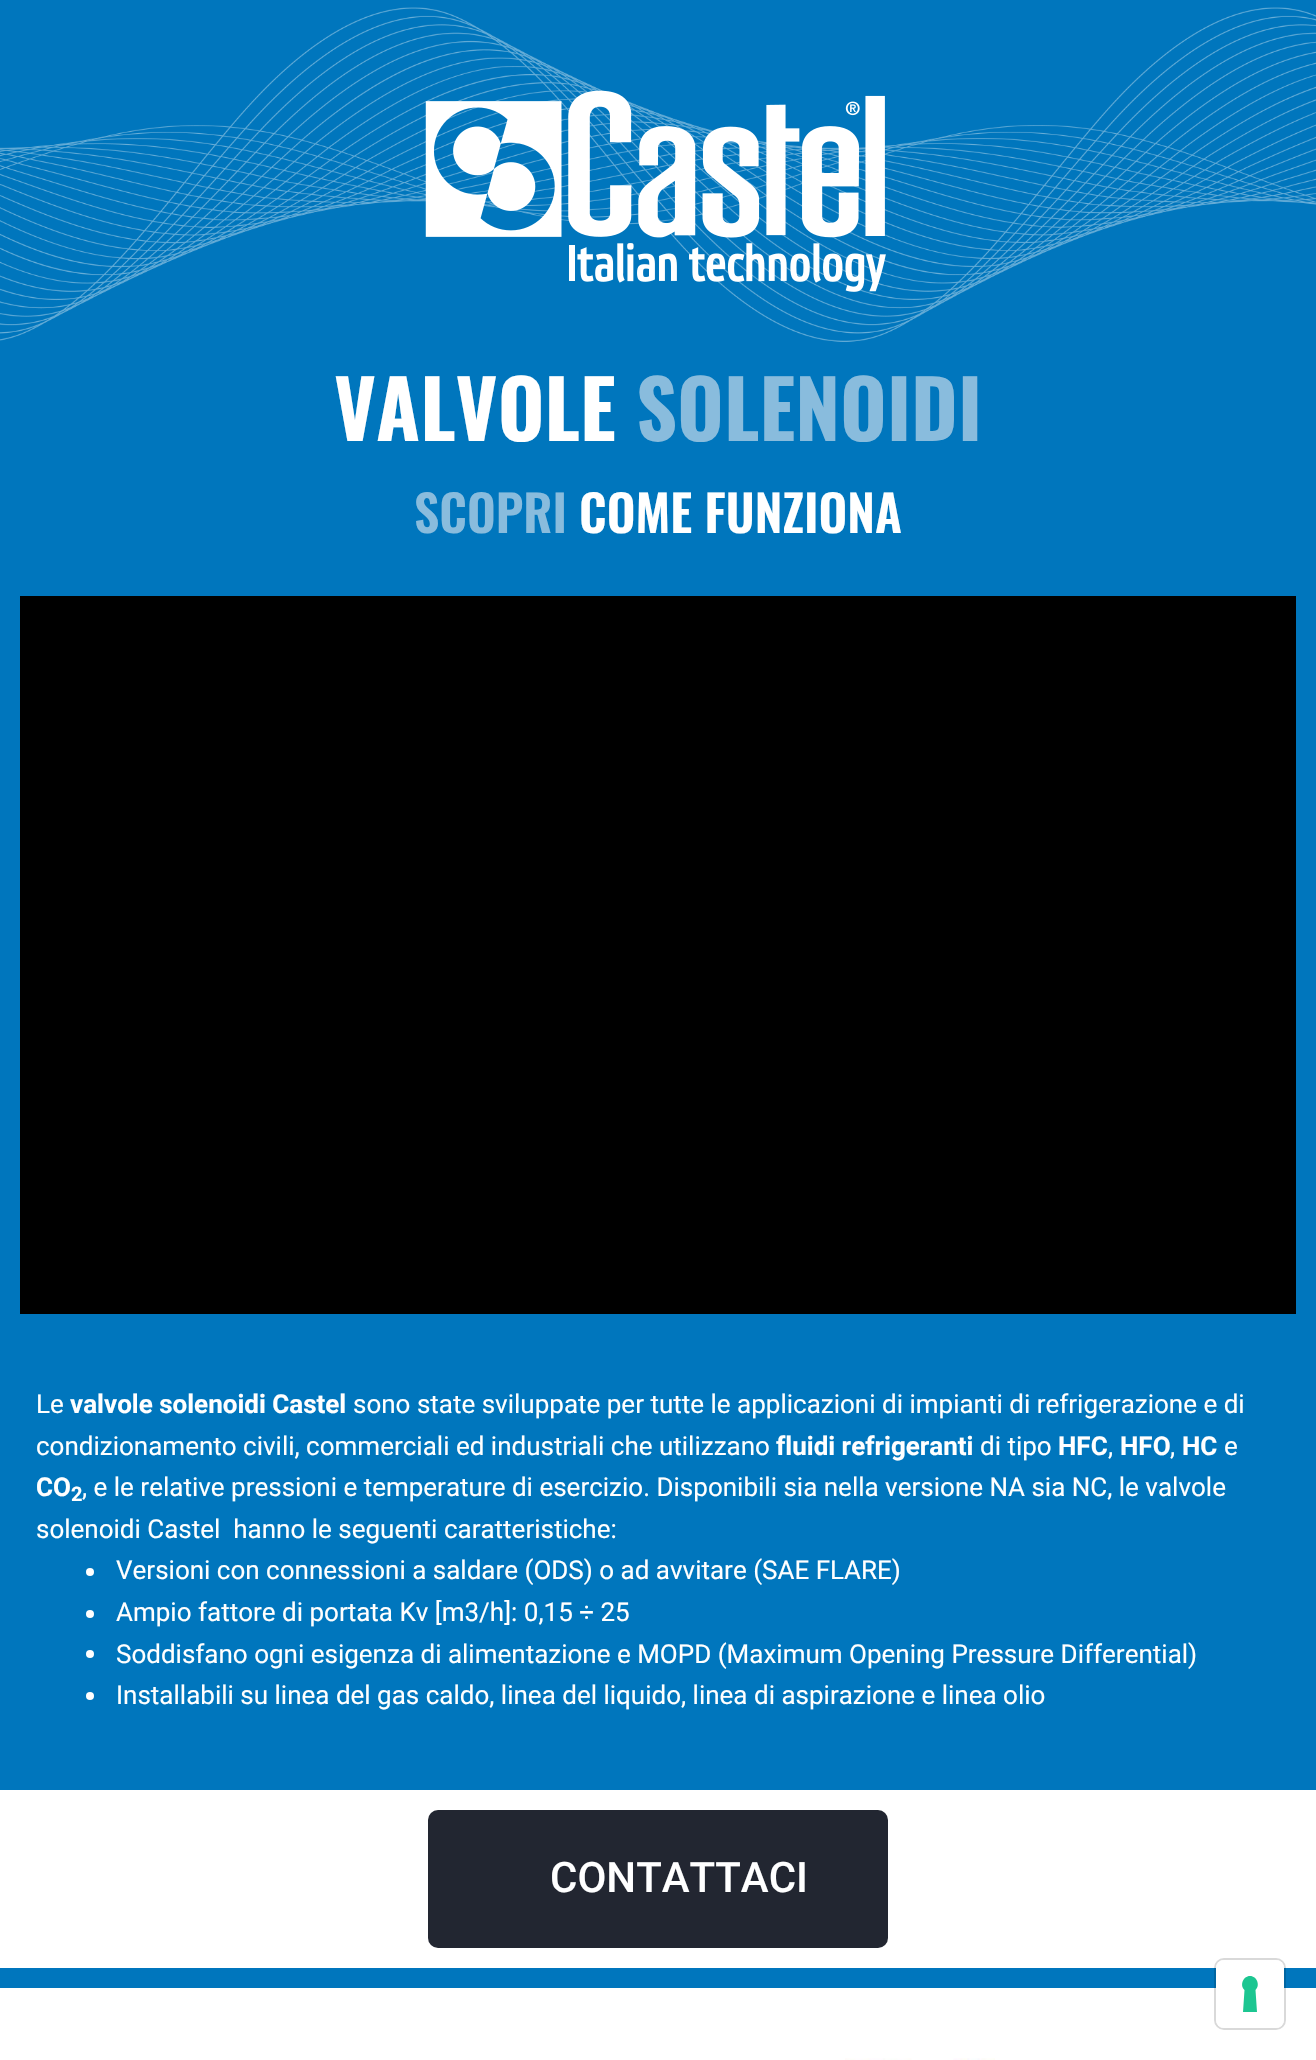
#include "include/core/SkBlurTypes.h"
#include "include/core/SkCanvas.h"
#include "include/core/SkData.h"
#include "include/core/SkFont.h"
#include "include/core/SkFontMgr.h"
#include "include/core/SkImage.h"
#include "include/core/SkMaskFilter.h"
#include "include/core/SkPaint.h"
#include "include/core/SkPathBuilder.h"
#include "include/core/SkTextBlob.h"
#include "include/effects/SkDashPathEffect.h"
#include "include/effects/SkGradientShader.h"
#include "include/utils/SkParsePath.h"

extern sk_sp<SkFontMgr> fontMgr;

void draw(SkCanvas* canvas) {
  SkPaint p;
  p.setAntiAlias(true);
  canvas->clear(SkColorSetRGB(0, 118, 189));
  canvas->drawImageRect(SkImages::DeferredFromEncodedData(SkData::MakeFromFileName("images/1.png")), SkRect::MakeLTRB(0, 7, 1316, 342), SkSamplingOptions());
  canvas->drawImageRect(SkImages::DeferredFromEncodedData(SkData::MakeFromFileName("images/2.png")), SkRect::MakeLTRB(425, 90, 886, 292), SkSamplingOptions());
  p.setColor(SK_ColorBLACK);
  canvas->drawRect(SkRect::MakeLTRB(20, 596, 1296, 1314), p);
  p.setColor(SK_ColorWHITE);
  canvas->drawCircle(90, 1572, 4, p);
  canvas->drawCircle(90, 1614, 4, p);
  canvas->drawCircle(90, 1654, 4, p);
  canvas->drawCircle(90, 1696, 4, p);
  canvas->drawRect(SkRect::MakeLTRB(0, 1790, 1316, 1968), p);
  p.setColor(SkColorSetRGB(34, 38, 49));
  canvas->drawRoundRect(SkRect::MakeLTRB(428, 1810, 888, 1948), 10, 10, p);
  p.setColor(SK_ColorWHITE);
  canvas->drawRect(SkRect::MakeLTRB(0, 1988, 1316, 2060), p);
  canvas->drawImageRect(SkImages::DeferredFromEncodedData(SkData::MakeFromFileName("images/3.png")), SkRect::MakeLTRB(845, 2058, 995, 2060), SkSamplingOptions());
  p.setStyle(SkPaint::kStroke_Style);
  p.setStrokeWidth(2);
  p.setColor(SkColorSetARGB(38, 0, 0, 0));
  canvas->drawRoundRect(SkRect::MakeLTRB(1215, 1959, 1285, 2029), 9, 9, p);
  p.setStyle(SkPaint::kFill_Style);
  p.setColor(SK_ColorWHITE);
  canvas->drawRoundRect(SkRect::MakeLTRB(1216, 1960, 1284, 2028), 8, 8, p);
  p.setColor(SkColorSetRGB(28, 198, 145));
  canvas->drawPath(SkPathBuilder(SkPathFillType::kEvenOdd).moveTo(1250, 1976).cubicTo(1257, 1976, 1260.5f, 1985.5f, 1255.5f, 1990).lineTo(1257, 2012).lineTo(1243, 2012).lineTo(1244.5f, 1990).cubicTo(1239.5f, 1985.5f, 1243, 1976, 1250, 1976).close().detach(), p);
  SkFont font1(fontMgr->matchFamilyStyle("Oswald", SkFontStyle::Bold()), 80);
  font1.setSubpixel(true);
  p.setColor(SK_ColorWHITE);
  canvas->drawString("VALVOLE", 334, 441, font1, p);
  p.setColor(SkColorSetRGB(137, 188, 221));
  canvas->drawString("SOLENOIDI", 636, 441, font1, p);
  SkFont font2(fontMgr->matchFamilyStyle("Oswald", SkFontStyle(600, SkFontStyle::kNormal_Width, SkFontStyle::kUpright_Slant)), 50);
  font2.setSubpixel(true);
  canvas->drawString("SCOPRI", 414, 533, font2, p);
  p.setColor(SK_ColorWHITE);
  canvas->drawString("COME FUNZIONA", 579, 533, font2, p);
  SkFont font3(fontMgr->matchFamilyStyle("Roboto", SkFontStyle::Normal()), 26);
  font3.setSubpixel(true);
  canvas->drawString("Le", 36, 1413, font3, p);
  SkFont font4(fontMgr->matchFamilyStyle("Roboto", SkFontStyle::Bold()), 26);
  font4.setSubpixel(true);
  canvas->drawString("valvole solenoidi Castel", 70, 1413, font4, p);
  canvas->drawString("sono state sviluppate per tutte le applicazioni di impianti di refrigerazione e di", 353, 1413, font3, p);
  canvas->drawString("condizionamento civili, commerciali ed industriali che utilizzano", 36, 1455, font3, p);
  canvas->drawString("fluidi refrigeranti", 776, 1455, font4, p);
  canvas->drawString("di tipo", 980, 1455, font3, p);
  canvas->drawString("HFC", 1058, 1455, font4, p);
  canvas->drawString(",", 1108, 1455, font3, p);
  canvas->drawString("HFO", 1120, 1455, font4, p);
  canvas->drawString(",", 1170, 1455, font3, p);
  canvas->drawString("HC", 1182, 1455, font4, p);
  canvas->drawString("e", 1224, 1455, font3, p);
  canvas->drawString("CO", 36, 1496, font4, p);
  SkFont font5(fontMgr->matchFamilyStyle("Roboto", SkFontStyle::Bold()), 20);
  font5.setSubpixel(true);
  canvas->drawString("2", 71, 1501, font5, p);
  canvas->drawString(", e le relative pressioni e temperature di esercizio. Disponibili sia nella versione NA sia NC, le valvole", 82, 1496, font3, p);
  canvas->drawString("solenoidi Castel  hanno le seguenti caratteristiche:", 36, 1538, font3, p);
  canvas->drawString("Versioni con connessioni a saldare (ODS) o ad avvitare (SAE FLARE)", 116, 1579, font3, p);
  canvas->drawString("Ampio fattore di portata Kv [m3/h]: 0,15 ÷ 25", 116, 1621, font3, p);
  canvas->drawString("Soddisfano ogni esigenza di alimentazione e MOPD (Maximum Opening Pressure Differential)", 116, 1663, font3, p);
  canvas->drawString("Installabili su linea del gas caldo, linea del liquido, linea di aspirazione e linea olio", 116, 1704, font3, p);
  SkFont font6(fontMgr->matchFamilyStyle("Roboto", SkFontStyle(500, SkFontStyle::kNormal_Width, SkFontStyle::kUpright_Slant)), 42);
  font6.setSubpixel(true);
  canvas->drawString("CONTATTACI", 550, 1892, font6, p);
}
